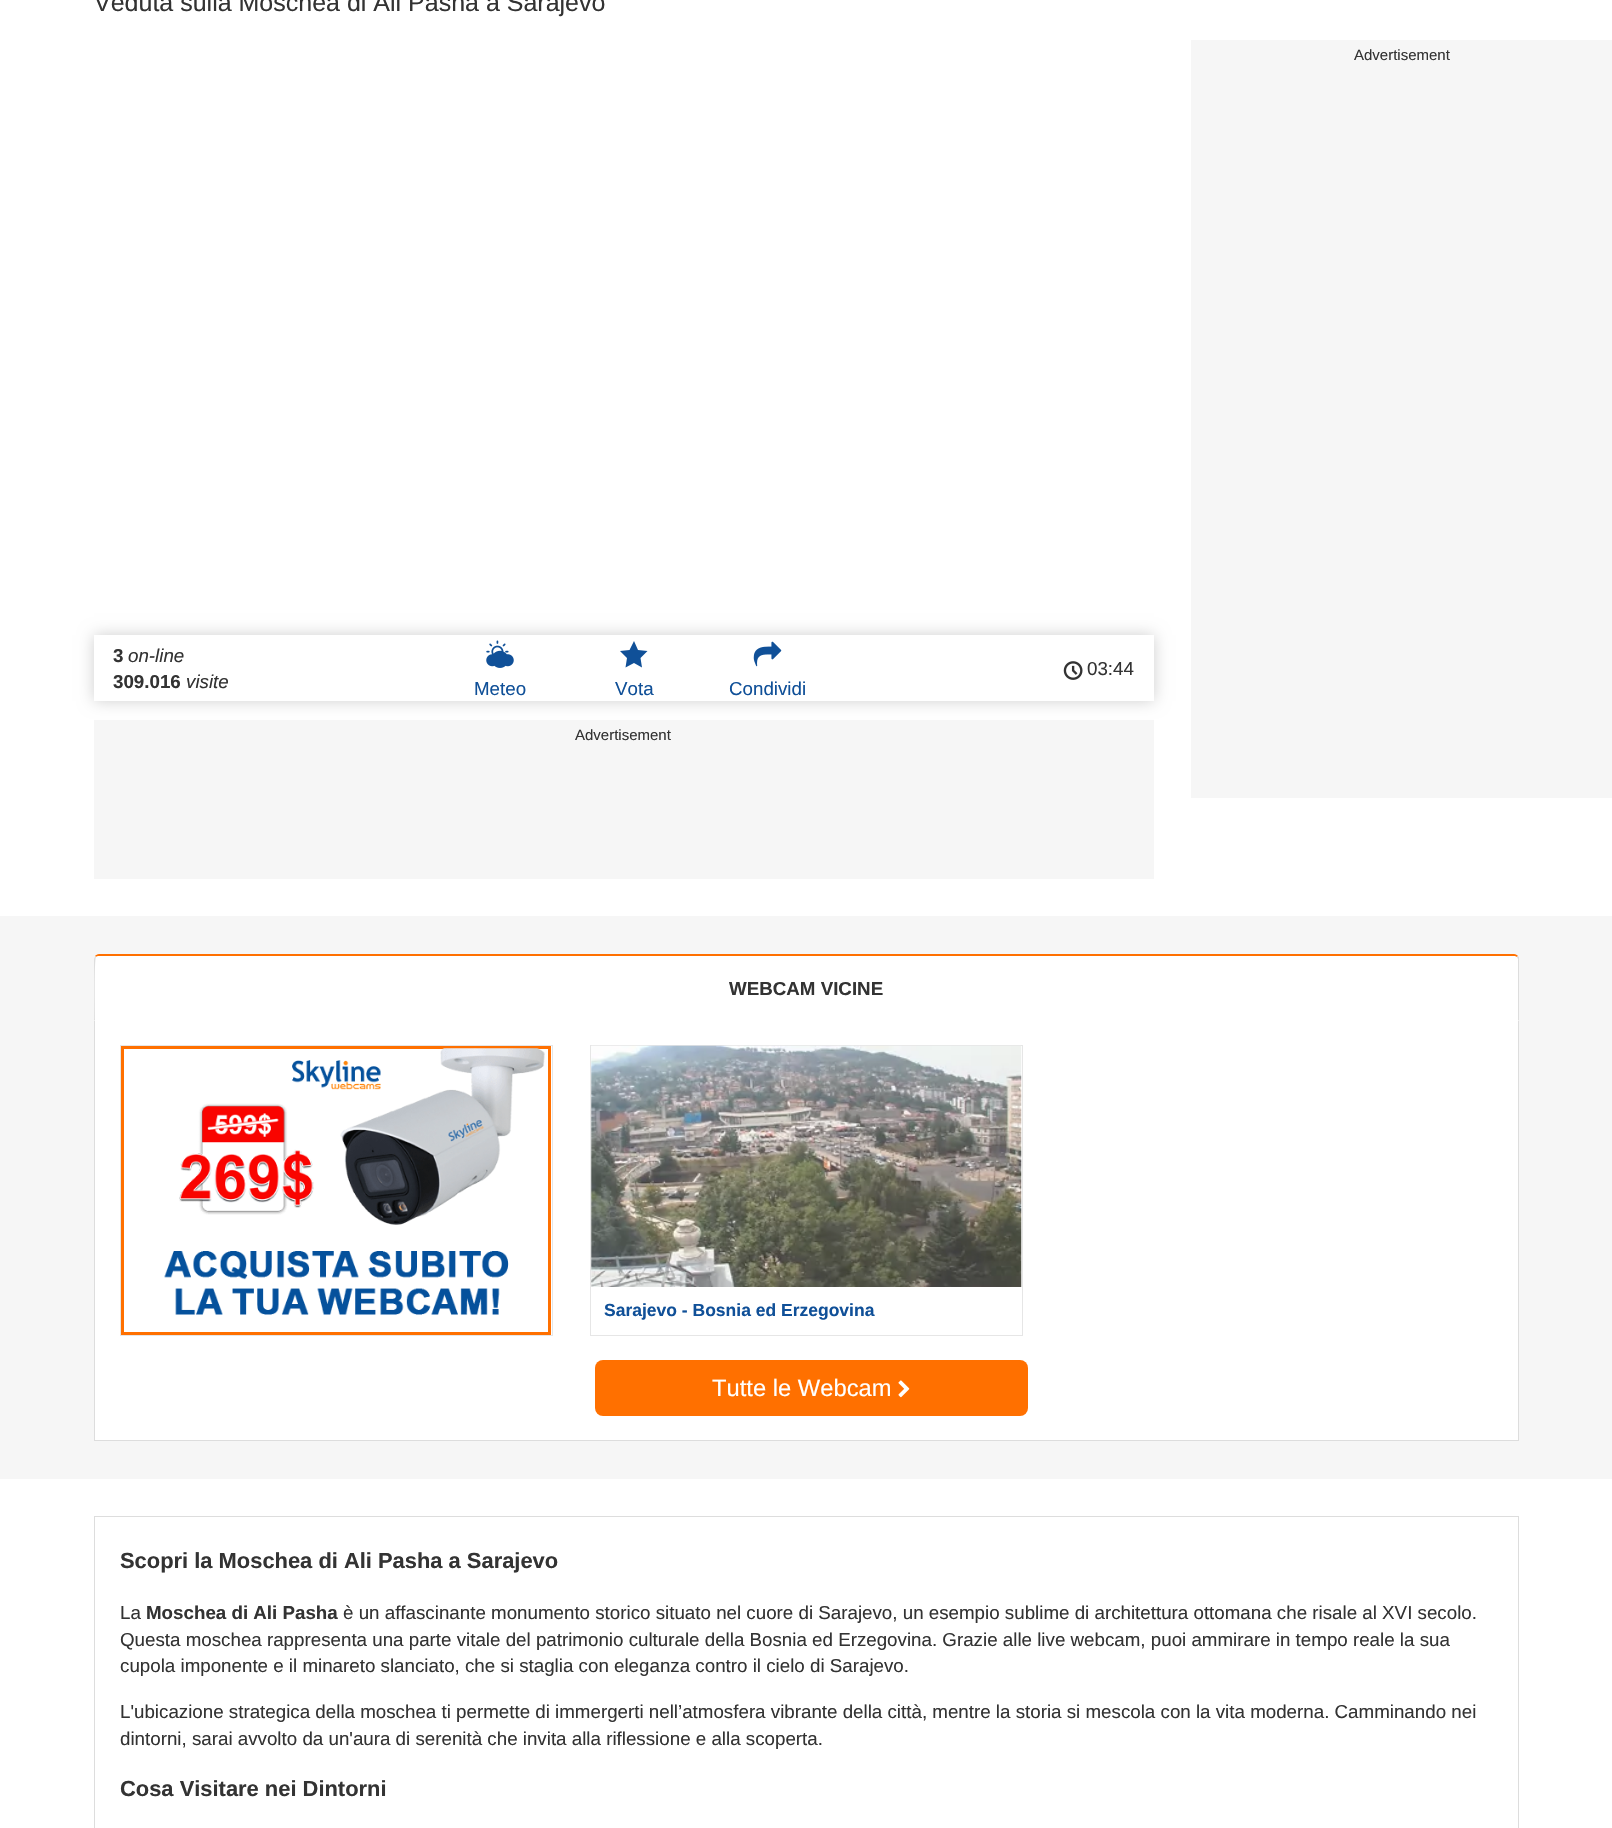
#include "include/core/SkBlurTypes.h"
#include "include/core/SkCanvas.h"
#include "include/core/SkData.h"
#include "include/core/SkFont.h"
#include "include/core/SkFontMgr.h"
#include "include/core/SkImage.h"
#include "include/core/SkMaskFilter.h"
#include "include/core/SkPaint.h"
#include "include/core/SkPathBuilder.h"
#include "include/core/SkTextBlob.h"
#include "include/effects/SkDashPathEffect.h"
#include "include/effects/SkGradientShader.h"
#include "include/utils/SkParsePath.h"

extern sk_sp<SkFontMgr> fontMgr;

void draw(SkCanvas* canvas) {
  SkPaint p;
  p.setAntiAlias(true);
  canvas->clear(SK_ColorWHITE);
  p.setColor(SkColorSetRGB(246, 246, 246));
  canvas->drawRect(SkRect::MakeLTRB(1191, 40, 1612, 798), p);
  canvas->save();
  canvas->clipPath(SkPathBuilder(SkPathFillType::kEvenOdd).moveTo(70, 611).lineTo(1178, 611).lineTo(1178, 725).lineTo(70, 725).close().moveTo(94, 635).lineTo(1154, 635).lineTo(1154, 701).lineTo(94, 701).close().detach(), true);
  p.setColor(SkColorSetARGB(48, 0, 0, 0));
  p.setMaskFilter(SkMaskFilter::MakeBlur(kNormal_SkBlurStyle, 7.5f));
  canvas->drawRect(SkRect::MakeLTRB(94, 635, 1154, 701), p);
  p.setMaskFilter(nullptr);
  canvas->restore();
  canvas->drawImageRect(SkImages::DeferredFromEncodedData(SkData::MakeFromFileName("images/1.png")), SkRect::MakeLTRB(1063, 661, 1083, 680), SkSamplingOptions());
  canvas->drawImageRect(SkImages::DeferredFromEncodedData(SkData::MakeFromFileName("images/2.png")), SkRect::MakeLTRB(486, 640, 514, 668), SkSamplingOptions());
  p.setColor(SkColorSetRGB(16, 80, 152));
  canvas->drawPath(SkPathBuilder().moveTo(647.5f, 651).lineTo(638, 650).lineTo(634, 641).lineTo(629.5f, 650).lineTo(620, 651).lineTo(627, 658).lineTo(625.5f, 667.5f).lineTo(634, 663).lineTo(642, 667.5f).lineTo(640.5f, 658).close().detach(), p);
  canvas->drawImageRect(SkImages::DeferredFromEncodedData(SkData::MakeFromFileName("images/3.png")), SkRect::MakeLTRB(753, 641, 782, 667), SkSamplingOptions());
  p.setColor(SkColorSetRGB(246, 246, 246));
  canvas->drawRect(SkRect::MakeLTRB(94, 720, 1154, 879), p);
  canvas->drawRect(SkRect::MakeLTRB(0, 916, 1612, 1479), p);
  p.setColor(SkColorSetRGB(221, 221, 221));
  canvas->drawRect(SkRect::MakeLTRB(1518, 1020, 1519, 1441), p);
  canvas->drawRect(SkRect::MakeLTRB(94, 1440, 1519, 1441), p);
  canvas->drawRect(SkRect::MakeLTRB(94, 1020, 95, 1441), p);
  p.setColor(SK_ColorWHITE);
  canvas->drawPath(SkPathBuilder().moveTo(99, 954).lineTo(1514, 954).cubicTo(1517, 954, 1519, 956, 1519, 959).lineTo(1519, 1021).lineTo(94, 1021).lineTo(94, 959).cubicTo(94, 956, 96, 954, 99, 954).close().detach(), p);
  p.setColor(SkColorSetRGB(255, 112, 0));
  canvas->drawPath(SkPathBuilder().moveTo(99, 954).cubicTo(97, 954, 96, 955, 95, 956).lineTo(96, 957).cubicTo(96, 956, 98, 956, 99, 956).lineTo(1514, 956).cubicTo(1515, 956, 1516, 956, 1517, 957).lineTo(1518, 956).cubicTo(1517, 955, 1516, 954, 1514, 954).close().detach(), p);
  p.setColor(SkColorSetRGB(221, 221, 221));
  canvas->drawPath(SkPathBuilder().moveTo(1519, 1021).lineTo(1518, 1020).lineTo(1518, 959).lineTo(1517, 957).lineTo(1518, 956).lineTo(1519, 957).close().detach(), p);
  canvas->drawPath(SkPathBuilder().moveTo(95, 956).lineTo(94, 959).lineTo(94, 1021).lineTo(95, 1020).cubicTo(95, 1013, 94, 959, 96, 957).close().detach(), p);
  p.setColor(SK_ColorWHITE);
  canvas->drawRect(SkRect::MakeLTRB(95, 1021, 1518, 1440), p);
  p.setStyle(SkPaint::kStroke_Style);
  p.setStrokeWidth(1);
  p.setColor(SkColorSetRGB(230, 230, 230));
  canvas->drawRect(SkRect::MakeLTRB(120.5f, 1045.5f, 552.5f, 1335.5f), p);
  p.setStrokeWidth(3);
  p.setColor(SkColorSetRGB(255, 112, 0));
  canvas->drawRect(SkRect::MakeLTRB(122.5f, 1047.5f, 549.5f, 1333.5f), p);
  canvas->drawImageRect(SkImages::DeferredFromEncodedData(SkData::MakeFromFileName("images/4.png")), SkRect::MakeLTRB(164, 1048, 545, 1315), SkSamplingOptions());
  p.setStrokeWidth(1);
  p.setColor(SkColorSetRGB(230, 230, 230));
  canvas->drawRect(SkRect::MakeLTRB(590.5f, 1045.5f, 1022.5f, 1335.5f), p);
  canvas->drawImageRect(SkImages::DeferredFromEncodedData(SkData::MakeFromFileName("images/5.png")), SkRect::MakeLTRB(591, 1045, 1022, 1287), SkSamplingOptions());
  p.setStyle(SkPaint::kFill_Style);
  p.setColor(SkColorSetRGB(255, 112, 0));
  canvas->drawRoundRect(SkRect::MakeLTRB(595, 1360, 1028, 1416), 8, 8, p);
  canvas->drawImageRect(SkImages::DeferredFromEncodedData(SkData::MakeFromFileName("images/6.png")), SkRect::MakeLTRB(898, 1380, 910, 1398), SkSamplingOptions());
  p.setStyle(SkPaint::kStroke_Style);
  p.setColor(SkColorSetRGB(221, 221, 221));
  canvas->drawRect(SkRect::MakeLTRB(94.5f, 1516.5f, 1518.5f, 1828.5f), p);
  SkFont font1(fontMgr->matchFamilyStyle("Liberation Sans", SkFontStyle::Normal()), 25);
  font1.setSubpixel(true);
  p.setStyle(SkPaint::kFill_Style);
  p.setColor(SkColorSetRGB(51, 51, 51));
  canvas->drawString("Veduta sulla Moschea di Ali Pasha a Sarajevo", 94, 11, font1, p);
  SkFont font2(fontMgr->matchFamilyStyle("Liberation Sans", SkFontStyle::Normal()), 15);
  font2.setSubpixel(true);
  canvas->drawString("Advertisement", 1354, 60, font2, p);
  SkFont font3(fontMgr->matchFamilyStyle("Liberation Sans", SkFontStyle::Bold()), 18.75f);
  font3.setSubpixel(true);
  canvas->drawString("3", 113, 662, font3, p);
  SkFont font4(fontMgr->matchFamilyStyle("Liberation Sans", SkFontStyle::Italic()), 18.75f);
  font4.setSubpixel(true);
  canvas->drawString("on-line", 128, 662, font4, p);
  canvas->drawString("309.016", 113, 688, font3, p);
  canvas->drawString("visite", 186, 688, font4, p);
  SkFont font5(fontMgr->matchFamilyStyle("Liberation Sans", SkFontStyle::Normal()), 18.75f);
  font5.setSubpixel(true);
  canvas->drawString("03:44", 1087, 675, font5, p);
  p.setColor(SkColorSetRGB(16, 80, 152));
  canvas->drawString("Meteo", 474, 695, font5, p);
  canvas->drawString("Vota", 615, 695, font5, p);
  canvas->drawString("Condividi", 729, 695, font5, p);
  p.setColor(SkColorSetRGB(51, 51, 51));
  canvas->drawString("Advertisement", 575, 740, font2, p);
  canvas->drawString("WEBCAM VICINE", 729, 995, font3, p);
  SkFont font6(fontMgr->matchFamilyStyle("Liberation Sans", SkFontStyle::Bold()), 17.5f);
  font6.setSubpixel(true);
  p.setColor(SkColorSetRGB(16, 80, 152));
  canvas->drawString("Sarajevo - Bosnia ed Erzegovina", 604, 1316, font6, p);
  SkFont font7(fontMgr->matchFamilyStyle("Liberation Sans", SkFontStyle::Normal()), 23.75f);
  font7.setSubpixel(true);
  p.setColor(SK_ColorWHITE);
  canvas->drawString("Tutte le Webcam", 712, 1396, font7, p);
  SkFont font8(fontMgr->matchFamilyStyle("Liberation Sans", SkFontStyle::Bold()), 21.9f);
  font8.setSubpixel(true);
  p.setColor(SkColorSetRGB(51, 51, 51));
  canvas->drawString("Scopri la Moschea di Ali Pasha a Sarajevo", 120, 1568, font8, p);
  canvas->drawString("La", 120, 1619, font5, p);
  canvas->drawString("Moschea di Ali Pasha", 146, 1619, font3, p);
  canvas->drawString("è un affascinante monumento storico situato nel cuore di Sarajevo, un esempio sublime di architettura ottomana che risale al XVI secolo.", 343, 1619, font5, p);
  canvas->drawString("Questa moschea rappresenta una parte vitale del patrimonio culturale della Bosnia ed Erzegovina. Grazie alle live webcam, puoi ammirare in tempo reale la sua", 120, 1646, font5, p);
  canvas->drawString("cupola imponente e il minareto slanciato, che si staglia con eleganza contro il cielo di Sarajevo.", 120, 1672, font5, p);
  canvas->drawString("L'ubicazione strategica della moschea ti permette di immergerti nell’atmosfera vibrante della città, mentre la storia si mescola con la vita moderna. Camminando nei", 120, 1718, font5, p);
  canvas->drawString("dintorni, sarai avvolto da un'aura di serenità che invita alla riflessione e alla scoperta.", 120, 1745, font5, p);
  canvas->drawString("Cosa Visitare nei Dintorni", 120, 1796, font8, p);
}
